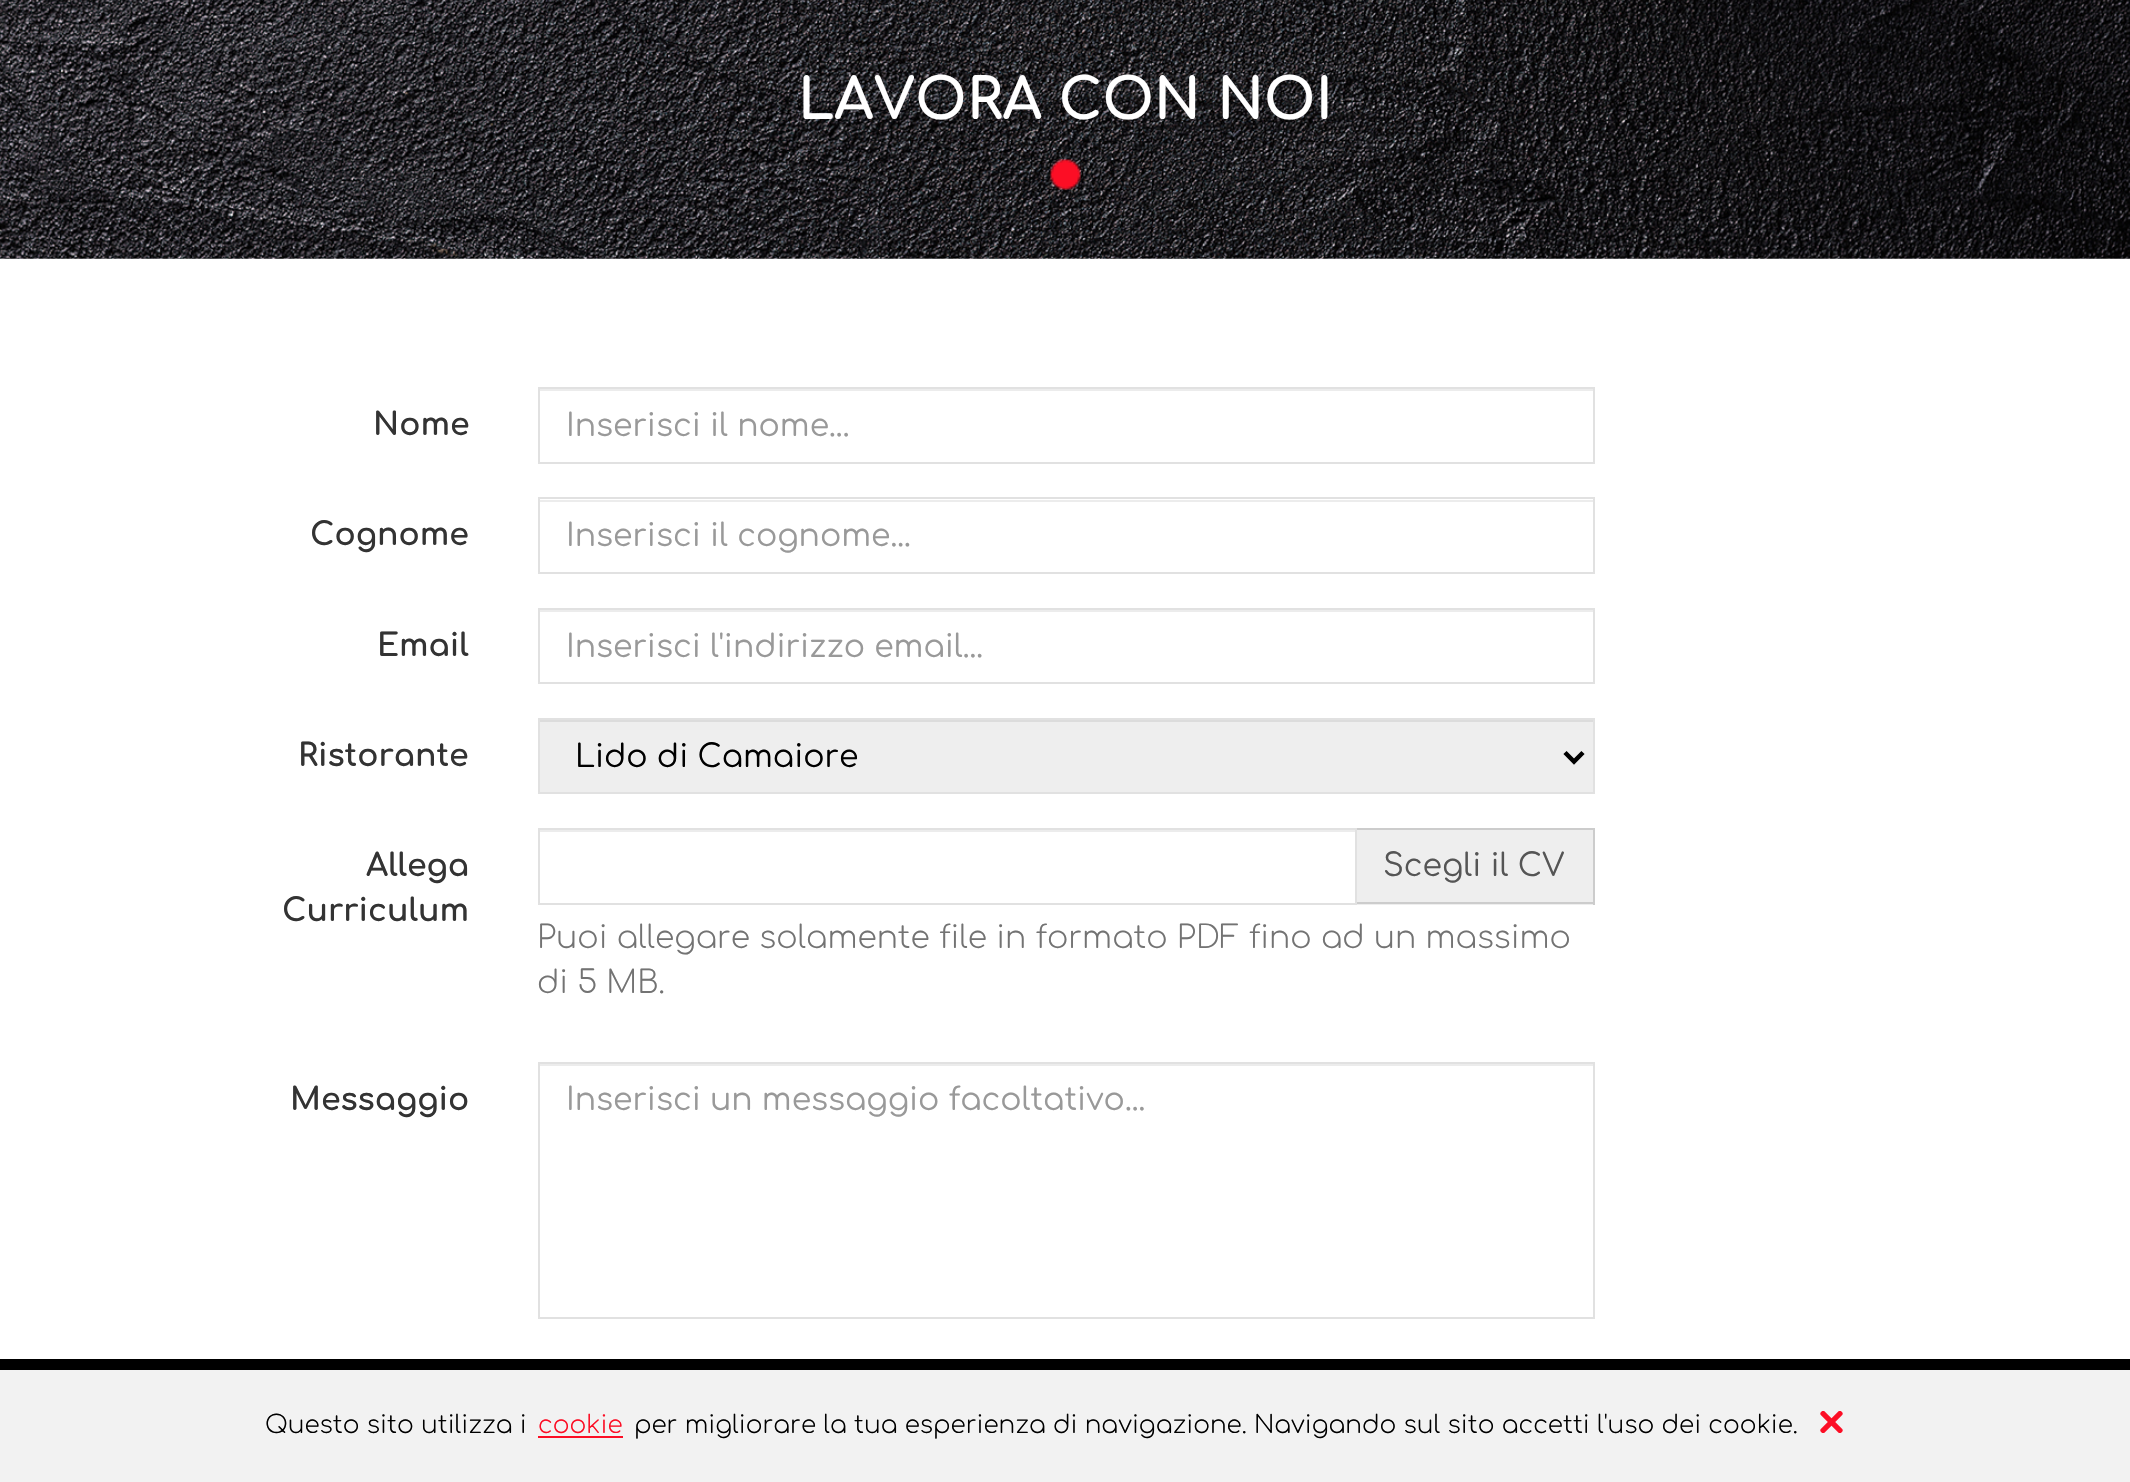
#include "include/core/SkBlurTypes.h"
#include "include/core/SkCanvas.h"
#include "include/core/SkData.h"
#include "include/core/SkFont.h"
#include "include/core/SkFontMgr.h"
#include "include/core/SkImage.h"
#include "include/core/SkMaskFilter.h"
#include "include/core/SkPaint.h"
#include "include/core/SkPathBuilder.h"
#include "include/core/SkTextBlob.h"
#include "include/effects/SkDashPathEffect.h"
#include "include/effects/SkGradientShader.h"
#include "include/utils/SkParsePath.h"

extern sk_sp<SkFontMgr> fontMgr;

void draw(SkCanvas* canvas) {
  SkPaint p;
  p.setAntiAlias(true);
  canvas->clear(SK_ColorWHITE);
  canvas->drawImageRect(SkImages::DeferredFromEncodedData(SkData::MakeFromFileName("images/1.png")), SkRect::MakeLTRB(0, 0, 2130, 259), SkSamplingOptions());
  canvas->drawImageRect(SkImages::DeferredFromEncodedData(SkData::MakeFromFileName("images/2.png")), SkRect::MakeLTRB(1050, 159, 1081, 190), SkSamplingOptions());
  p.setColor(SkColorSetRGB(236, 236, 236));
  canvas->drawRect(SkRect::MakeLTRB(540, 389, 1593, 391), p);
  p.setStyle(SkPaint::kStroke_Style);
  p.setStrokeWidth(2);
  p.setColor(SkColorSetRGB(225, 225, 225));
  canvas->drawRect(SkRect::MakeLTRB(539, 388, 1594, 463), p);
  p.setStyle(SkPaint::kFill_Style);
  p.setColor(SkColorSetRGB(236, 236, 236));
  canvas->drawRect(SkRect::MakeLTRB(540, 500, 1593, 502), p);
  p.setStyle(SkPaint::kStroke_Style);
  p.setColor(SkColorSetRGB(225, 225, 225));
  canvas->drawRect(SkRect::MakeLTRB(539, 498, 1594, 573), p);
  p.setStyle(SkPaint::kFill_Style);
  p.setColor(SkColorSetRGB(236, 236, 236));
  canvas->drawRect(SkRect::MakeLTRB(540, 610, 1593, 612), p);
  p.setStyle(SkPaint::kStroke_Style);
  p.setColor(SkColorSetRGB(225, 225, 225));
  canvas->drawRect(SkRect::MakeLTRB(539, 609, 1594, 683), p);
  p.setStyle(SkPaint::kFill_Style);
  p.setColor(SkColorSetRGB(238, 238, 238));
  canvas->drawRect(SkRect::MakeLTRB(540, 722, 1593, 792), p);
  p.setColor(SkColorSetRGB(220, 220, 220));
  canvas->drawRect(SkRect::MakeLTRB(540, 720, 1593, 722), p);
  p.setStyle(SkPaint::kStroke_Style);
  p.setColor(SkColorSetRGB(225, 225, 225));
  canvas->drawRect(SkRect::MakeLTRB(539, 719, 1594, 793), p);
  p.setStrokeWidth(4.5f);
  p.setColor(SK_ColorBLACK);
  canvas->drawPath(SkPathBuilder().moveTo(1565, 752.5f).lineTo(1574, 761.5f).lineTo(1583, 752.5f).detach(), p);
  p.setStyle(SkPaint::kFill_Style);
  p.setColor(SkColorSetRGB(236, 236, 236));
  canvas->drawRect(SkRect::MakeLTRB(540, 830, 1355, 832), p);
  p.setStyle(SkPaint::kStroke_Style);
  p.setStrokeWidth(2);
  p.setColor(SkColorSetRGB(225, 225, 225));
  canvas->drawRect(SkRect::MakeLTRB(539, 829, 1356, 904), p);
  p.setStyle(SkPaint::kFill_Style);
  p.setColor(SkColorSetRGB(238, 238, 238));
  canvas->drawRect(SkRect::MakeLTRB(1357, 830, 1593, 905), p);
  p.setColor(SkColorSetRGB(204, 204, 204));
  canvas->drawRect(SkRect::MakeLTRB(1357, 828, 1595, 830), p);
  canvas->drawRect(SkRect::MakeLTRB(1593, 828, 1595, 905), p);
  canvas->drawRect(SkRect::MakeLTRB(1357, 902, 1595, 904), p);
  p.setColor(SkColorSetRGB(236, 236, 236));
  canvas->drawRect(SkRect::MakeLTRB(540, 1064, 1593, 1066), p);
  p.setStyle(SkPaint::kStroke_Style);
  p.setColor(SkColorSetRGB(225, 225, 225));
  canvas->drawRect(SkRect::MakeLTRB(539, 1063, 1594, 1318), p);
  p.setStyle(SkPaint::kFill_Style);
  p.setColor(SkColorSetRGB(242, 242, 242));
  canvas->drawRect(SkRect::MakeLTRB(0, 1370, 2130, 1482), p);
  p.setColor(SK_ColorBLACK);
  canvas->drawRect(SkRect::MakeLTRB(0, 1359, 2130, 1370), p);
  p.setColor(SkColorSetRGB(252, 14, 37));
  canvas->drawRect(SkRect::MakeLTRB(538, 1436, 623, 1438), p);
  canvas->drawImageRect(SkImages::DeferredFromEncodedData(SkData::MakeFromFileName("images/3.png")), SkRect::MakeLTRB(1820, 1411, 1843, 1433), SkSamplingOptions());
  SkFont font1(fontMgr->matchFamilyStyle("Comfortaa", SkFontStyle::Bold()), 56.25f);
  font1.setSubpixel(true);
  p.setColor(SK_ColorWHITE);
  canvas->drawString("LAVORA CON NOI", 798, 119, font1, p);
  SkFont font2(fontMgr->matchFamilyStyle("Comfortaa", SkFontStyle::Bold()), 31.5f);
  font2.setSubpixel(true);
  p.setColor(SkColorSetRGB(51, 51, 51));
  canvas->drawString("Nome", 373, 435, font2, p);
  SkFont font3(fontMgr->matchFamilyStyle("Comfortaa", SkFontStyle::Normal()), 31.5f);
  font3.setSubpixel(true);
  p.setColor(SkColorSetRGB(153, 153, 153));
  canvas->drawString("Inserisci il nome...", 566, 436, font3, p);
  p.setColor(SkColorSetRGB(51, 51, 51));
  canvas->drawString("Cognome", 310, 545, font2, p);
  p.setColor(SkColorSetRGB(153, 153, 153));
  canvas->drawString("Inserisci il cognome...", 566, 546, font3, p);
  p.setColor(SkColorSetRGB(51, 51, 51));
  canvas->drawString("Email", 377, 656, font2, p);
  p.setColor(SkColorSetRGB(153, 153, 153));
  canvas->drawString("Inserisci l'indirizzo email...", 566, 657, font3, p);
  p.setColor(SkColorSetRGB(51, 51, 51));
  canvas->drawString("Ristorante", 298, 766, font2, p);
  p.setColor(SK_ColorBLACK);
  canvas->drawString("Lido di Camaiore", 575, 767, font3, p);
  p.setColor(SkColorSetRGB(51, 51, 51));
  canvas->drawString("Allega", 366, 876, font2, p);
  canvas->drawString("Curriculum", 282, 921, font2, p);
  p.setColor(SkColorSetRGB(85, 85, 85));
  canvas->drawString("Scegli il CV", 1383, 876, font3, p);
  SkFont font4(fontMgr->matchFamilyStyle("Comfortaa", SkFontStyle(300, SkFontStyle::kNormal_Width, SkFontStyle::kUpright_Slant)), 31.5f);
  font4.setSubpixel(true);
  p.setColor(SkColorSetRGB(115, 115, 115));
  canvas->drawString("Puoi allegare solamente file in formato PDF fino ad un massimo", 537, 948, font4, p);
  canvas->drawString("di 5 MB.", 537, 993, font4, p);
  p.setColor(SkColorSetRGB(51, 51, 51));
  canvas->drawString("Messaggio", 290, 1110, font2, p);
  p.setColor(SkColorSetRGB(153, 153, 153));
  canvas->drawString("Inserisci un messaggio facoltativo...", 566, 1110, font3, p);
  SkFont font5(fontMgr->matchFamilyStyle("Comfortaa", SkFontStyle(300, SkFontStyle::kNormal_Width, SkFontStyle::kUpright_Slant)), 24.75f);
  font5.setSubpixel(true);
  p.setColor(SK_ColorBLACK);
  canvas->drawString("Questo sito utilizza i", 265, 1433, font5, p);
  p.setColor(SkColorSetRGB(252, 14, 37));
  canvas->drawString("cookie", 538, 1433, font5, p);
  p.setColor(SK_ColorBLACK);
  canvas->drawString("per migliorare la tua esperienza di navigazione. Navigando sul sito accetti l'uso dei cookie.", 634, 1433, font5, p);
}
